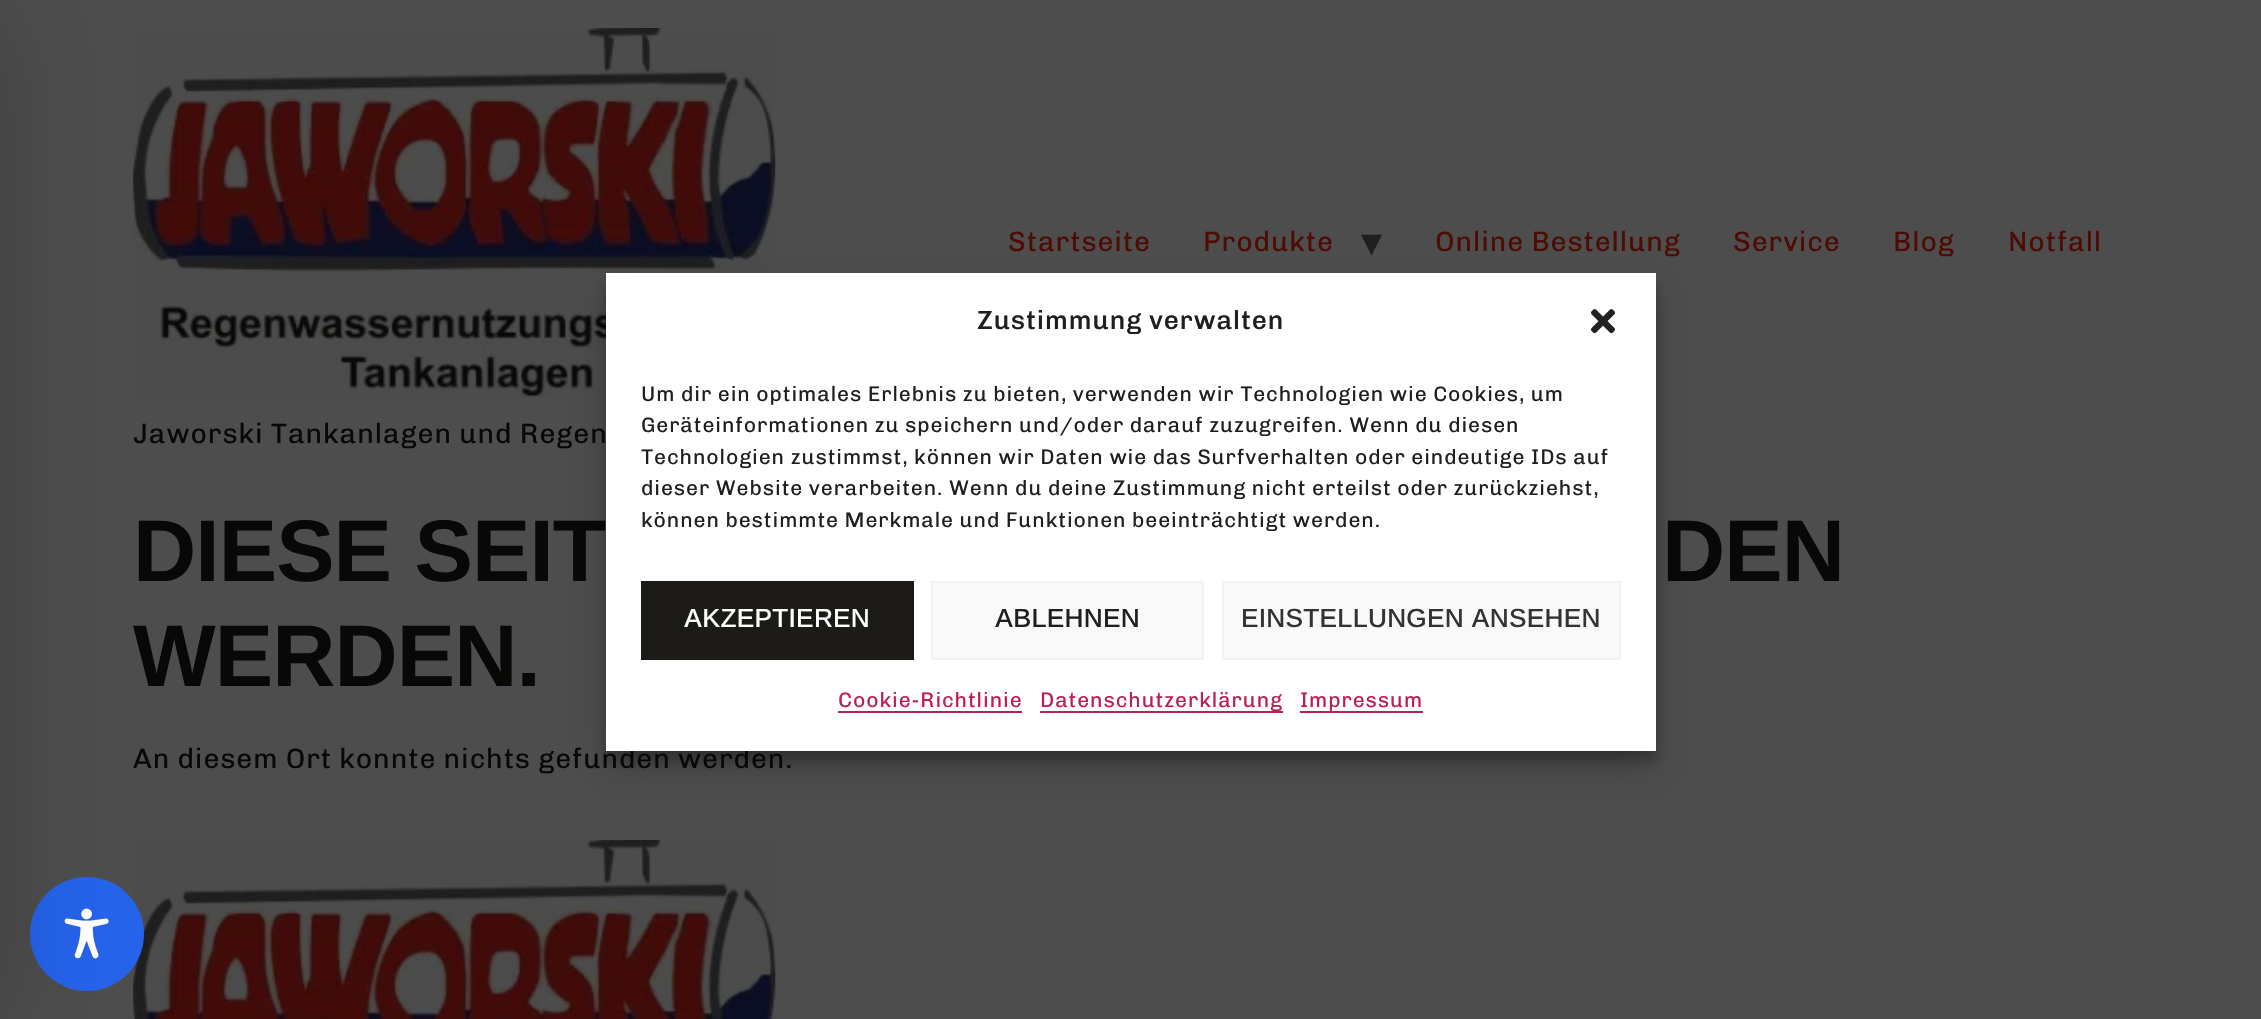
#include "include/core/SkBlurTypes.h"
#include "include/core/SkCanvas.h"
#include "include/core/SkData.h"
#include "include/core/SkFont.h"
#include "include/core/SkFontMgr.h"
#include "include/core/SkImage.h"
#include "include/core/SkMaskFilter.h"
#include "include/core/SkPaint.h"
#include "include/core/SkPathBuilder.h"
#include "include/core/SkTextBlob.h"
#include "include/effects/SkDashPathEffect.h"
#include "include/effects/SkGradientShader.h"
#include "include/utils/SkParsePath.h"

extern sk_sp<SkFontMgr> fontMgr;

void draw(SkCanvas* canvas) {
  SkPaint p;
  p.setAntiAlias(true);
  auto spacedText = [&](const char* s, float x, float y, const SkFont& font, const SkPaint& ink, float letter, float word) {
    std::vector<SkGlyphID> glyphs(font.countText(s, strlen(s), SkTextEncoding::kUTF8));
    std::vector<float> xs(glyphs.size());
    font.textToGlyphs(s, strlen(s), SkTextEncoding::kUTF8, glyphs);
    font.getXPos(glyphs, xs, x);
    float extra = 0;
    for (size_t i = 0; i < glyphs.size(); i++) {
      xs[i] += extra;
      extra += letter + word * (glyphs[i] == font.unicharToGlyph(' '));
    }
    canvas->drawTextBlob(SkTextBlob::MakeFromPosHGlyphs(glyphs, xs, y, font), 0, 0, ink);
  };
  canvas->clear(SkColorSetRGB(77, 77, 77));
  canvas->drawImageRect(SkImages::DeferredFromEncodedData(SkData::MakeFromFileName("images/1.png")), SkRect::MakeLTRB(133, 28, 776, 398), SkSamplingOptions());
  canvas->drawImageRect(SkImages::DeferredFromEncodedData(SkData::MakeFromFileName("images/4.png")), SkRect::MakeLTRB(133, 840, 776, 1019), SkSamplingOptions());
  p.setColor(SkColorSetRGB(37, 99, 235));
  canvas->drawCircle(87, 934, 57, p);
  canvas->drawImageRect(SkImages::DeferredFromEncodedData(SkData::MakeFromFileName("images/3.png")), SkRect::MakeLTRB(64, 908, 109, 959), SkSamplingOptions());
  p.setColor(SkColorSetARGB(51, 0, 0, 0));
  p.setMaskFilter(SkMaskFilter::MakeBlur(kNormal_SkBlurStyle, 52.5f));
  canvas->drawRect(SkRect::MakeLTRB(-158, 18, 0, 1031), p);
  p.setMaskFilter(nullptr);
  p.setColor(SkColorSetARGB(59, 0, 0, 0));
  p.setMaskFilter(SkMaskFilter::MakeBlur(kNormal_SkBlurStyle, 5));
  canvas->drawRect(SkRect::MakeLTRB(606, 284, 1656, 761), p);
  p.setMaskFilter(nullptr);
  p.setColor(SkColorSetARGB(48, 0, 0, 0));
  p.setMaskFilter(SkMaskFilter::MakeBlur(kNormal_SkBlurStyle, 17.5f));
  canvas->drawRect(SkRect::MakeLTRB(606, 291, 1656, 768), p);
  p.setMaskFilter(nullptr);
  SkFont font1(fontMgr->matchFamilyStyle("Chivo", SkFontStyle::Normal()), 28);
  font1.setSubpixel(true);
  p.setColor(SkColorSetRGB(77, 11, 3));
  spacedText("Startseite", 1008, 251, font1, p, 0.88f, 0);
  spacedText("Produkte", 1203, 251, font1, p, 0.88f, 0);
  SkFont font2(fontMgr->matchFamilyStyle("DejaVu Sans", SkFontStyle::Normal()), 42);
  font2.setSubpixel(true);
  p.setColor(SkColorSetRGB(31, 31, 31));
  spacedText("▾", 1361, 256, font2, p, 0.88f, 0);
  p.setColor(SkColorSetRGB(77, 11, 3));
  spacedText("Online Bestellung", 1435, 251, font1, p, 0.88f, 0);
  spacedText("Service", 1733, 251, font1, p, 0.88f, 0);
  spacedText("Blog", 1893, 251, font1, p, 0.88f, 0);
  spacedText("Notfall", 2008, 251, font1, p, 0.88f, 0);
  p.setColor(SkColorSetRGB(8, 8, 7));
  spacedText("Jaworski Tankanlagen und Regen", 133, 443, font1, p, 0.88f, 0);
  SkFont font3(fontMgr->matchFamilyStyle("Arimo", SkFontStyle::Bold()), 87.5f);
  font3.setSubpixel(true);
  spacedText("DIESE SEIT", 133, 581, font3, p, -0.9f, 0);
  spacedText("DEN", 1662, 581, font3, p, -0.9f, 0);
  spacedText("WERDEN.", 133, 686, font3, p, -0.9f, 0);
  spacedText("An diesem Ort konnte nichts gefunden werden.", 133, 768, font1, p, 0.88f, 0);
  p.setColor(SK_ColorWHITE);
  canvas->drawRect(SkRect::MakeLTRB(606, 273, 1656, 751), p);
  SkFont font4(fontMgr->matchFamilyStyle("Chivo", SkFontStyle::Normal()), 21);
  font4.setSubpixel(true);
  p.setColor(SkColorSetRGB(31, 31, 31));
  spacedText("können bestimmte Merkmale und Funktionen beeinträchtigt werden.", 641, 527, font4, p, 0.88f, 0);
  spacedText("dieser Website verarbeiten. Wenn du deine Zustimmung nicht erteilst oder zurückziehst,", 641, 495, font4, p, 0.88f, 0);
  spacedText("Technologien zustimmst, können wir Daten wie das Surfverhalten oder eindeutige IDs auf", 641, 464, font4, p, 0.88f, 0);
  spacedText("Geräteinformationen zu speichern und/oder darauf zuzugreifen. Wenn du diesen", 641, 432, font4, p, 0.88f, 0);
  spacedText("Um dir ein optimales Erlebnis zu bieten, verwenden wir Technologien wie Cookies, um", 641, 401, font4, p, 0.88f, 0);
  canvas->drawImageRect(SkImages::DeferredFromEncodedData(SkData::MakeFromFileName("images/2.png")), SkRect::MakeLTRB(1591, 309, 1615, 334), SkSamplingOptions());
  p.setColor(SkColorSetRGB(190, 30, 86));
  spacedText("Impressum", 1300, 707, font4, p, 0.88f, 0);
  canvas->drawRect(SkRect::MakeLTRB(1300, 711, 1423, 713), p);
  spacedText("Datenschutzerklärung", 1040, 707, font4, p, 0.88f, 0);
  canvas->drawRect(SkRect::MakeLTRB(1040, 711, 1283, 713), p);
  spacedText("Cookie-Richtlinie", 838, 707, font4, p, 0.88f, 0);
  canvas->drawRect(SkRect::MakeLTRB(838, 711, 1022, 713), p);
  p.setColor(SkColorSetRGB(249, 249, 249));
  canvas->drawRect(SkRect::MakeLTRB(1223, 582, 1620, 659), p);
  p.setStyle(SkPaint::kStroke_Style);
  p.setStrokeWidth(2);
  p.setColor(SkColorSetRGB(242, 242, 242));
  canvas->drawRect(SkRect::MakeLTRB(1223, 582, 1620, 659), p);
  SkFont font5(fontMgr->matchFamilyStyle("Arimo", SkFontStyle(500, SkFontStyle::kNormal_Width, SkFontStyle::kUpright_Slant)), 26.25f);
  font5.setSubpixel(true);
  p.setStyle(SkPaint::kFill_Style);
  p.setColor(SkColorSetRGB(51, 51, 51));
  spacedText("EINSTELLUNGEN ANSEHEN", 1241, 627, font5, p, 0.25f, 0);
  p.setColor(SkColorSetRGB(249, 249, 249));
  canvas->drawRect(SkRect::MakeLTRB(932, 582, 1203, 659), p);
  p.setStyle(SkPaint::kStroke_Style);
  p.setColor(SkColorSetRGB(242, 242, 242));
  canvas->drawRect(SkRect::MakeLTRB(932, 582, 1203, 659), p);
  p.setStyle(SkPaint::kFill_Style);
  p.setColor(SkColorSetRGB(31, 31, 31));
  spacedText("ABLEHNEN", 995, 627, font5, p, 0.25f, 0);
  p.setColor(SkColorSetRGB(27, 26, 23));
  canvas->drawRect(SkRect::MakeLTRB(641, 581, 914, 660), p);
  p.setColor(SK_ColorWHITE);
  spacedText("AKZEPTIEREN", 684, 627, font5, p, 0.25f, 0);
  SkFont font6(fontMgr->matchFamilyStyle("Chivo", SkFontStyle(500, SkFontStyle::kNormal_Width, SkFontStyle::kUpright_Slant)), 26.25f);
  font6.setSubpixel(true);
  p.setColor(SkColorSetRGB(31, 31, 31));
  spacedText("Zustimmung verwalten", 977, 329, font6, p, 0.88f, 0);
}
